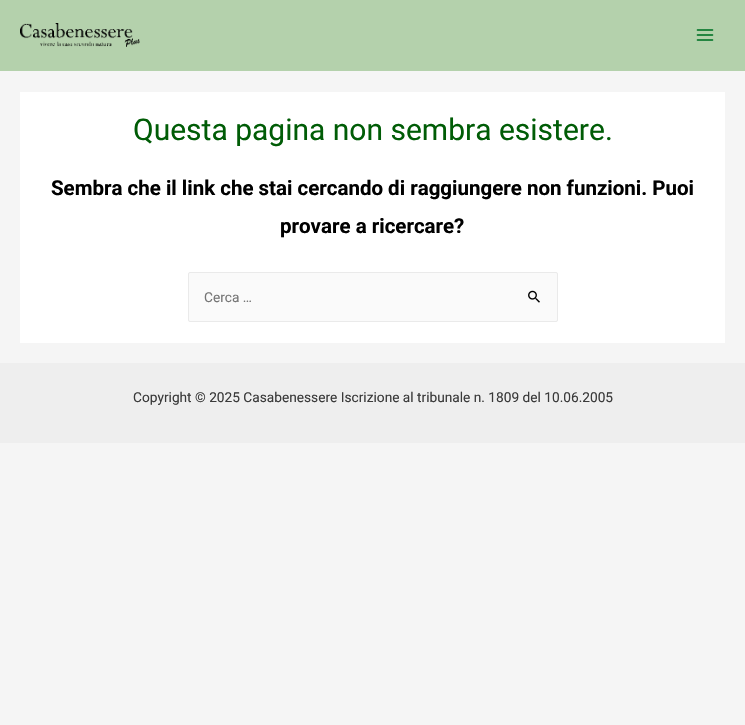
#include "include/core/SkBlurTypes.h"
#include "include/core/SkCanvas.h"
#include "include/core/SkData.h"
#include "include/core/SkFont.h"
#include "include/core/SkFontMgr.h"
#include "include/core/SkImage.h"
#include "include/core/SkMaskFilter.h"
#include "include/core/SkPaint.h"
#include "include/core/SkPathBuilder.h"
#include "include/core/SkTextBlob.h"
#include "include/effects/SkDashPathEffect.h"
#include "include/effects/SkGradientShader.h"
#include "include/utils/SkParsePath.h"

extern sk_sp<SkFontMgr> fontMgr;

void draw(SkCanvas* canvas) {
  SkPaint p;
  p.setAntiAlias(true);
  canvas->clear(SkColorSetRGB(245, 245, 245));
  p.setColor(SkColorSetRGB(180, 209, 172));
  canvas->drawRect(SkRect::MakeLTRB(0, 0, 745, 71), p);
  canvas->drawImageRect(SkImages::DeferredFromEncodedData(SkData::MakeFromFileName("images/1.png")), SkRect::MakeLTRB(20, 23, 140, 47), SkSamplingOptions());
  canvas->drawImageRect(SkImages::DeferredFromEncodedData(SkData::MakeFromFileName("images/2.png")), SkRect::MakeLTRB(696, 29, 714, 41), SkSamplingOptions());
  p.setColor(SK_ColorWHITE);
  canvas->drawRect(SkRect::MakeLTRB(20, 92, 725, 343), p);
  p.setColor(SkColorSetRGB(250, 250, 250));
  canvas->drawRoundRect(SkRect::MakeLTRB(188.5f, 272.5f, 557.5f, 321.5f), 1.5f, 1.5f, p);
  p.setStyle(SkPaint::kStroke_Style);
  p.setStrokeWidth(1);
  p.setColor(SkColorSetRGB(234, 234, 234));
  canvas->drawRoundRect(SkRect::MakeLTRB(188.5f, 272.5f, 557.5f, 321.5f), 1.5f, 1.5f, p);
  canvas->drawImageRect(SkImages::DeferredFromEncodedData(SkData::MakeFromFileName("images/3.png")), SkRect::MakeLTRB(528, 290, 540, 303), SkSamplingOptions());
  p.setStyle(SkPaint::kFill_Style);
  p.setColor(SkColorSetRGB(238, 238, 238));
  canvas->drawRect(SkRect::MakeLTRB(0, 363, 745, 443), p);
  SkFont font1(fontMgr->matchFamilyStyle("Roboto", SkFontStyle::Normal()), 30);
  font1.setSubpixel(true);
  p.setColor(SkColorSetRGB(0, 92, 6));
  canvas->drawString("Questa pagina non sembra esistere.", 133, 140, font1, p);
  SkFont font2(fontMgr->matchFamilyStyle("Roboto", SkFontStyle::Bold()), 20.5f);
  font2.setSubpixel(true);
  p.setColor(SK_ColorBLACK);
  canvas->drawString("Sembra che il link che stai cercando di raggiungere non funzioni. Puoi", 51, 195, font2, p);
  canvas->drawString("provare a ricercare?", 280, 233, font2, p);
  SkFont font3(fontMgr->matchFamilyStyle("Roboto", SkFontStyle::Normal()), 13.7f);
  font3.setSubpixel(true);
  p.setColor(SkColorSetRGB(117, 117, 117));
  canvas->drawString("Cerca …", 204, 302, font3, p);
  p.setColor(SkColorSetRGB(58, 58, 58));
  canvas->drawString("Copyright © 2025 Casabenessere Iscrizione al tribunale n. 1809 del 10.06.2005", 133, 402, font3, p);
}
